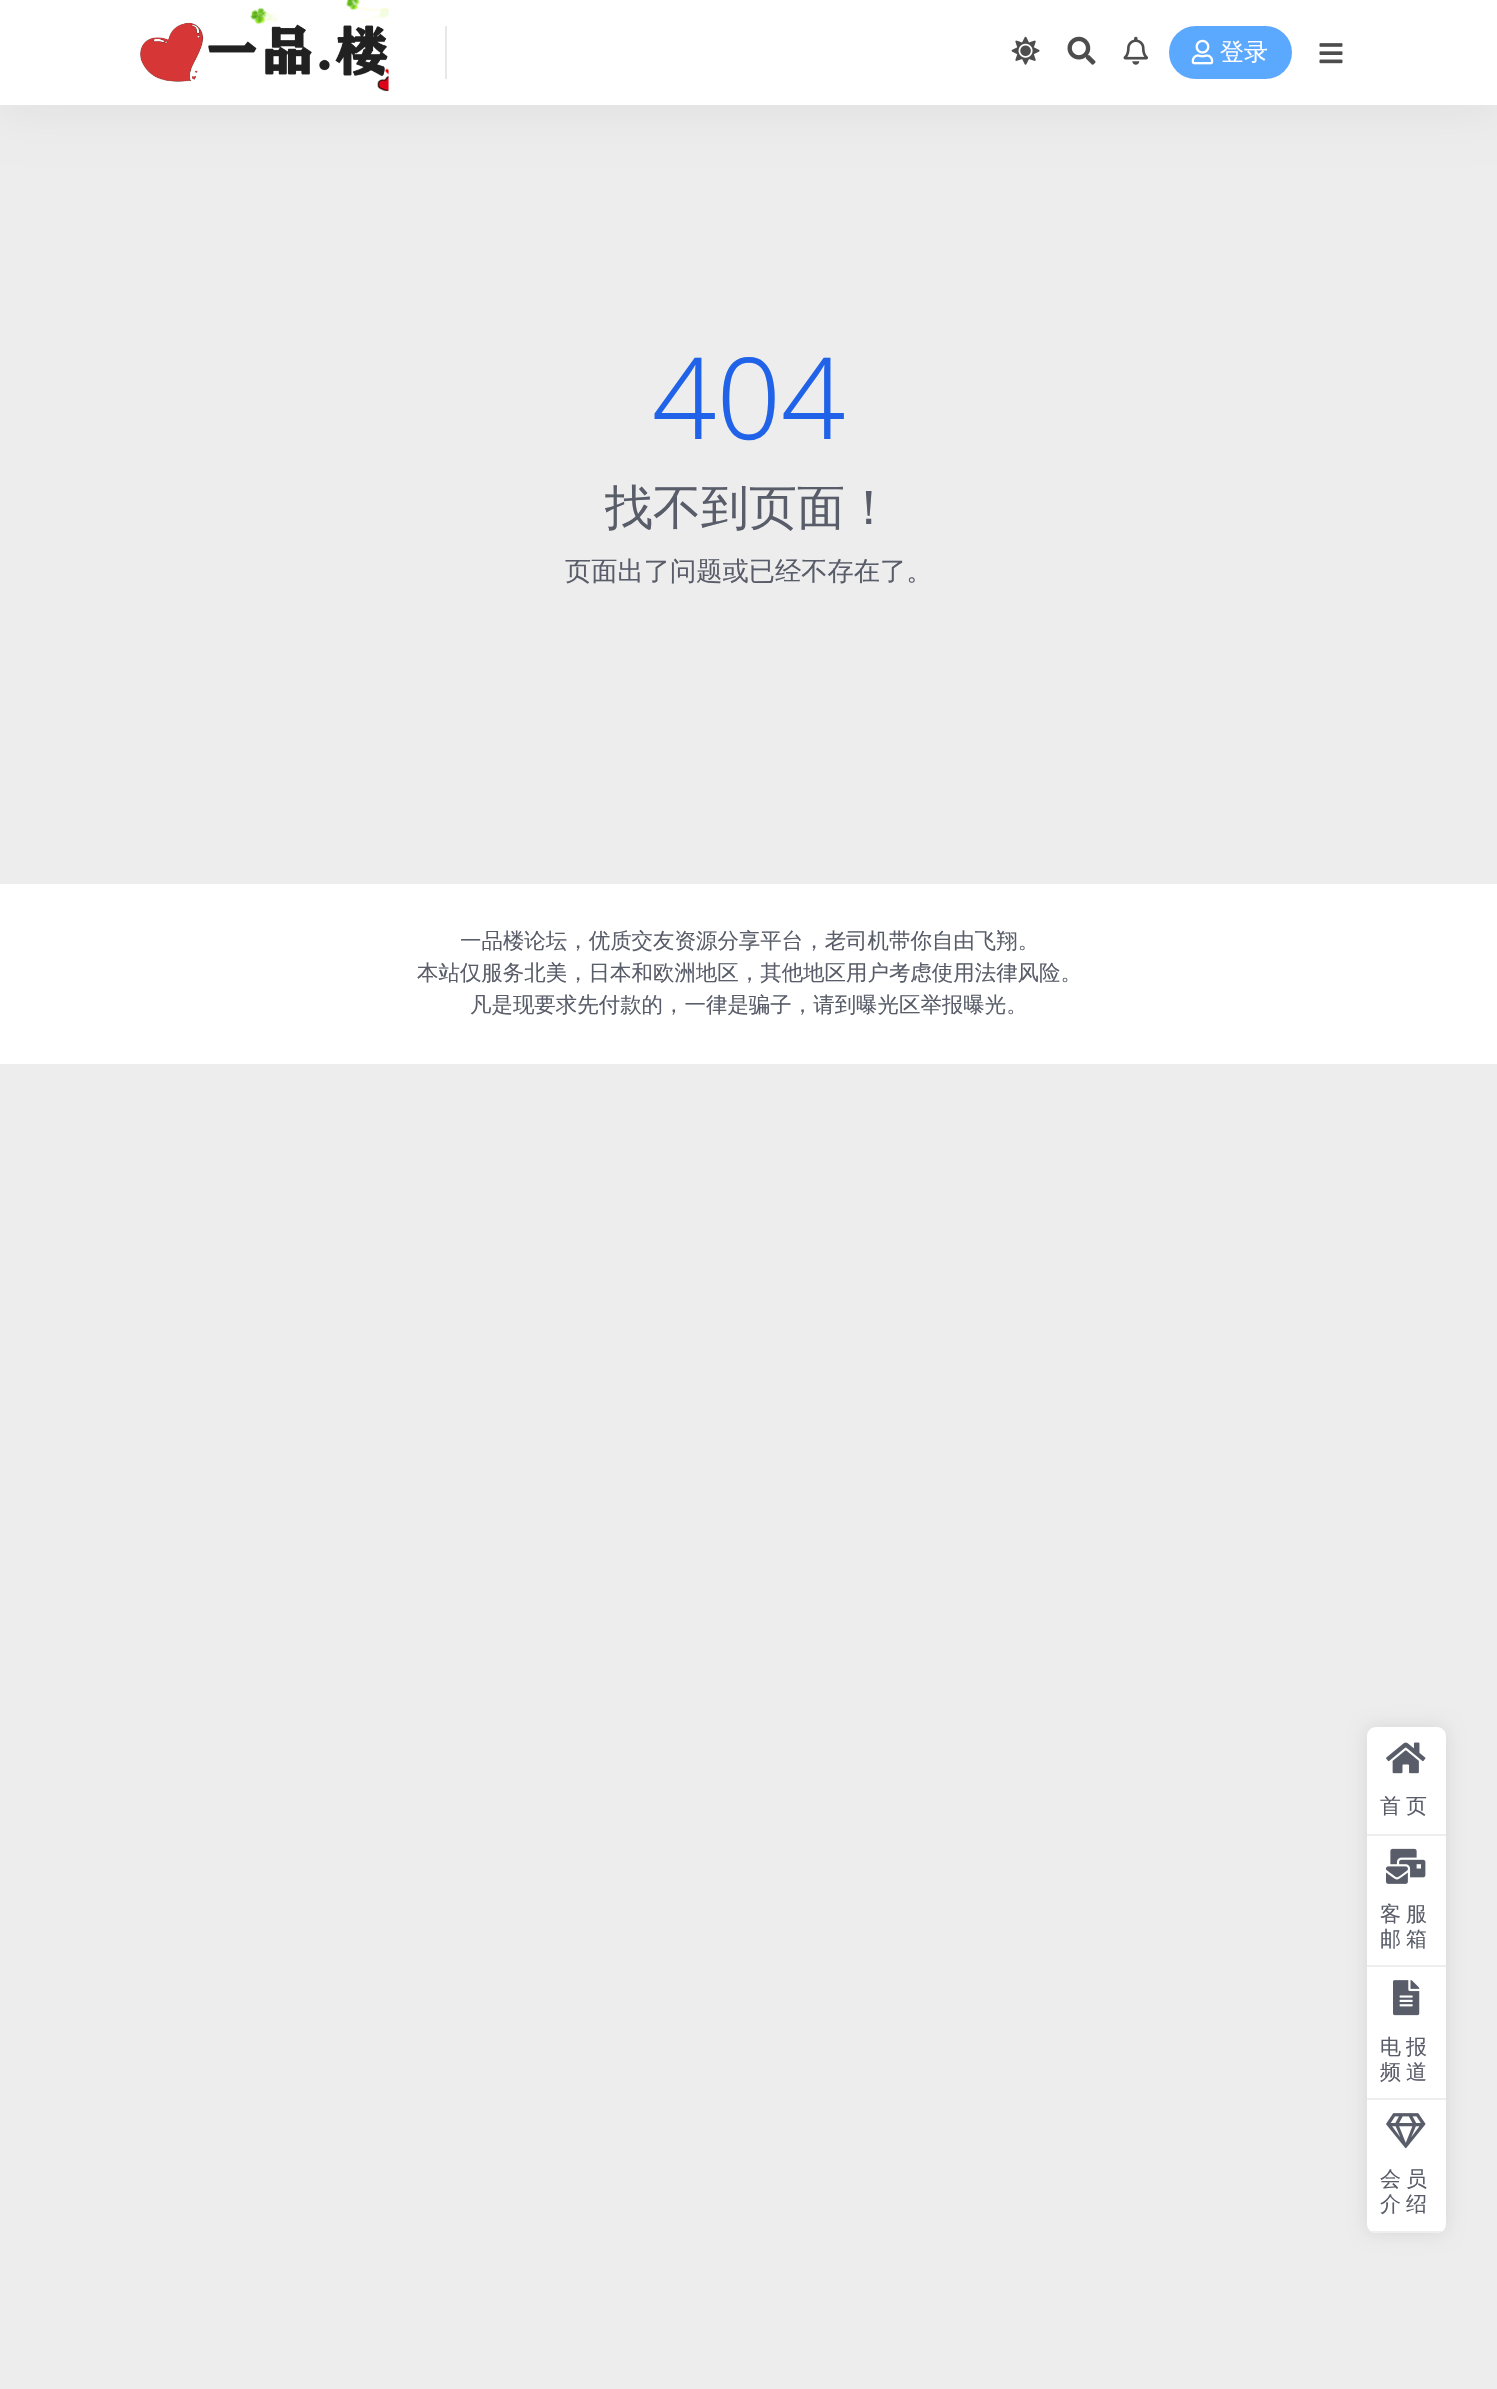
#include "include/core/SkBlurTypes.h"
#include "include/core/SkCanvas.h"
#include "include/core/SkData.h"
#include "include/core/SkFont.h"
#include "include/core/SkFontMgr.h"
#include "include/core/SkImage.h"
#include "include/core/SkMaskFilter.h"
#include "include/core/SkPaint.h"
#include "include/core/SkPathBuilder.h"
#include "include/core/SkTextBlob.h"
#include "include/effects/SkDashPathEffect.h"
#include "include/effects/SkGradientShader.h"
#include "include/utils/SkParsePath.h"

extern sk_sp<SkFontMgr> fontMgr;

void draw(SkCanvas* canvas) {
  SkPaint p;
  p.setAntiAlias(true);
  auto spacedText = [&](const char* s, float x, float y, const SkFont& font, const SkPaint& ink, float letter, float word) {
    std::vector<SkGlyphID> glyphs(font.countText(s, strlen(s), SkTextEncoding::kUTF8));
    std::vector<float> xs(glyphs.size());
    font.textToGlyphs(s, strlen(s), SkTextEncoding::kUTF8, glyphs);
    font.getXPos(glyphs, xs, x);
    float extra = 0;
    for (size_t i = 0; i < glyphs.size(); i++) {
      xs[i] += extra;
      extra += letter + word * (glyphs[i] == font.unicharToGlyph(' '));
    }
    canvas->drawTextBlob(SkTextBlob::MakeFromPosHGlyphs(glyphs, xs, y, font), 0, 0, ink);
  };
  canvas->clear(SkColorSetRGB(237, 237, 237));
  p.setColor(SkColorSetARGB(18, 0, 0, 0));
  p.setMaskFilter(SkMaskFilter::MakeBlur(kNormal_SkBlurStyle, 26));
  canvas->drawRect(SkRect::MakeLTRB(0, 0, 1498, 105), p);
  p.setMaskFilter(nullptr);
  p.setColor(SK_ColorWHITE);
  canvas->drawRect(SkRect::MakeLTRB(0, 0, 1497, 105), p);
  canvas->drawImageRect(SkImages::DeferredFromEncodedData(SkData::MakeFromFileName("images/1.png")), SkRect::MakeLTRB(140, 0, 389, 92), SkSamplingOptions());
  p.setColor(SkColorSetRGB(232, 232, 233));
  canvas->drawRect(SkRect::MakeLTRB(445, 26, 447, 79), p);
  canvas->drawImageRect(SkImages::DeferredFromEncodedData(SkData::MakeFromFileName("images/2.png")), SkRect::MakeLTRB(1011, 36, 1040, 65), SkSamplingOptions());
  canvas->drawImageRect(SkImages::DeferredFromEncodedData(SkData::MakeFromFileName("images/3.png")), SkRect::MakeLTRB(1067, 36, 1096, 65), SkSamplingOptions());
  canvas->drawImageRect(SkImages::DeferredFromEncodedData(SkData::MakeFromFileName("images/4.png")), SkRect::MakeLTRB(1123, 36, 1148, 65), SkSamplingOptions());
  p.setColor(SkColorSetRGB(91, 168, 255));
  canvas->drawRoundRect(SkRect::MakeLTRB(1169, 26, 1292, 79), 26.5f, 26.5f, p);
  canvas->drawImageRect(SkImages::DeferredFromEncodedData(SkData::MakeFromFileName("images/5.png")), SkRect::MakeLTRB(1191, 39, 1214, 65), SkSamplingOptions());
  canvas->drawImageRect(SkImages::DeferredFromEncodedData(SkData::MakeFromFileName("images/6.png")), SkRect::MakeLTRB(1319, 43, 1343, 64), SkSamplingOptions());
  p.setColor(SK_ColorWHITE);
  canvas->drawRect(SkRect::MakeLTRB(0, 884, 1497, 1064), p);
  p.setColor(SkColorSetARGB(26, 0, 0, 0));
  p.setMaskFilter(SkMaskFilter::MakeBlur(kNormal_SkBlurStyle, 9));
  canvas->drawRoundRect(SkRect::MakeLTRB(1367, 1727, 1446, 2233), 9, 9, p);
  p.setMaskFilter(nullptr);
  p.setColor(SK_ColorWHITE);
  canvas->drawPath(SkPathBuilder().moveTo(1376, 1727).lineTo(1437, 1727).cubicTo(1442, 1727, 1446, 1731, 1446, 1736).lineTo(1446, 1836).lineTo(1367, 1836).lineTo(1367, 1736).cubicTo(1367, 1731, 1371, 1727, 1376, 1727).close().detach(), p);
  p.setColor(SkColorSetRGB(238, 238, 238));
  canvas->drawRect(SkRect::MakeLTRB(1367, 1834, 1446, 1836), p);
  canvas->drawImageRect(SkImages::DeferredFromEncodedData(SkData::MakeFromFileName("images/7.png")), SkRect::MakeLTRB(1386, 1742, 1426, 1774), SkSamplingOptions());
  p.setColor(SK_ColorWHITE);
  canvas->drawRect(SkRect::MakeLTRB(1367, 1836, 1446, 1965), p);
  p.setColor(SkColorSetRGB(238, 238, 238));
  canvas->drawRect(SkRect::MakeLTRB(1367, 1965, 1446, 1967), p);
  canvas->drawImageRect(SkImages::DeferredFromEncodedData(SkData::MakeFromFileName("images/8.png")), SkRect::MakeLTRB(1386, 1848, 1426, 1884), SkSamplingOptions());
  p.setColor(SK_ColorWHITE);
  canvas->drawRect(SkRect::MakeLTRB(1367, 1967, 1446, 2098), p);
  p.setColor(SkColorSetRGB(238, 238, 238));
  canvas->drawRect(SkRect::MakeLTRB(1367, 2098, 1446, 2100), p);
  canvas->drawImageRect(SkImages::DeferredFromEncodedData(SkData::MakeFromFileName("images/9.png")), SkRect::MakeLTRB(1393, 1980, 1420, 2016), SkSamplingOptions());
  p.setColor(SK_ColorWHITE);
  canvas->drawPath(SkPathBuilder().moveTo(1367, 2100).lineTo(1446, 2100).lineTo(1446, 2224).cubicTo(1446, 2229, 1442, 2233, 1437, 2233).lineTo(1376, 2233).cubicTo(1371, 2233, 1367, 2229, 1367, 2224).close().detach(), p);
  canvas->save();
  canvas->clipPath(SkPathBuilder().moveTo(1376, 1727).lineTo(1437, 1727).cubicTo(1442, 1727, 1446, 1731, 1446, 1736).lineTo(1446, 2224).cubicTo(1446, 2229, 1442, 2233, 1437, 2233).lineTo(1376, 2233).cubicTo(1371, 2233, 1367, 2229, 1367, 2224).lineTo(1367, 1736).cubicTo(1367, 1731, 1371, 1727, 1376, 1727).close().detach(), true);
  p.setColor(SkColorSetRGB(238, 238, 238));
  canvas->drawRect(SkRect::MakeLTRB(1367, 2231, 1446, 2233), p);
  canvas->restore();
  canvas->drawImageRect(SkImages::DeferredFromEncodedData(SkData::MakeFromFileName("images/10.png")), SkRect::MakeLTRB(1386, 2113, 1426, 2149), SkSamplingOptions());
  SkFont font1(fontMgr->matchFamilyStyle("WenQuanYi Zen Hei", SkFontStyle(500, SkFontStyle::kNormal_Width, SkFontStyle::kUpright_Slant)), 24);
  font1.setSubpixel(true);
  p.setColor(SK_ColorWHITE);
  canvas->drawString("登录", 1220, 60, font1, p);
  SkFont font2(fontMgr->matchFamilyStyle("Noto Sans", SkFontStyle(300, SkFontStyle::kNormal_Width, SkFontStyle::kUpright_Slant)), 113);
  font2.setSubpixel(true);
  p.setColor(SkColorSetRGB(33, 99, 232));
  canvas->drawString("404", 652, 439, font2, p);
  SkFont font3(fontMgr->matchFamilyStyle("WenQuanYi Zen Hei", SkFontStyle(500, SkFontStyle::kNormal_Width, SkFontStyle::kUpright_Slant)), 48);
  font3.setSubpixel(true);
  p.setColor(SkColorSetRGB(89, 93, 105));
  canvas->drawString("找不到页面！", 605, 524, font3, p);
  SkFont font4(fontMgr->matchFamilyStyle("WenQuanYi Zen Hei", SkFontStyle(500, SkFontStyle::kNormal_Width, SkFontStyle::kUpright_Slant)), 26.25f);
  font4.setSubpixel(true);
  canvas->drawString("页面出了问题或已经不存在了。", 565, 580, font4, p);
  SkFont font5(fontMgr->matchFamilyStyle("WenQuanYi Zen Hei", SkFontStyle(500, SkFontStyle::kNormal_Width, SkFontStyle::kUpright_Slant)), 21.45f);
  font5.setSubpixel(true);
  canvas->drawString("一品楼论坛，优质交友资源分享平台，老司机带你自由飞翔。", 460, 948, font5, p);
  canvas->drawString("本站仅服务北美，日本和欧洲地区，其他地区用户考虑使用法律风险。", 417, 980, font5, p);
  canvas->drawString("凡是现要求先付款的，一律是骗子，请到曝光区举报曝光。", 470, 1012, font5, p);
  SkFont font6(fontMgr->matchFamilyStyle("WenQuanYi Zen Hei", SkFontStyle(500, SkFontStyle::kNormal_Width, SkFontStyle::kUpright_Slant)), 21);
  font6.setSubpixel(true);
  spacedText("首页", 1380, 1813, font6, p, 5, 0);
  spacedText("客服", 1380, 1921, font6, p, 5, 0);
  spacedText("邮箱", 1380, 1946, font6, p, 5, 0);
  spacedText("电报", 1380, 2054, font6, p, 5, 0);
  spacedText("频道", 1380, 2079, font6, p, 5, 0);
  spacedText("会员", 1380, 2186, font6, p, 5, 0);
  spacedText("介绍", 1380, 2211, font6, p, 5, 0);
}
